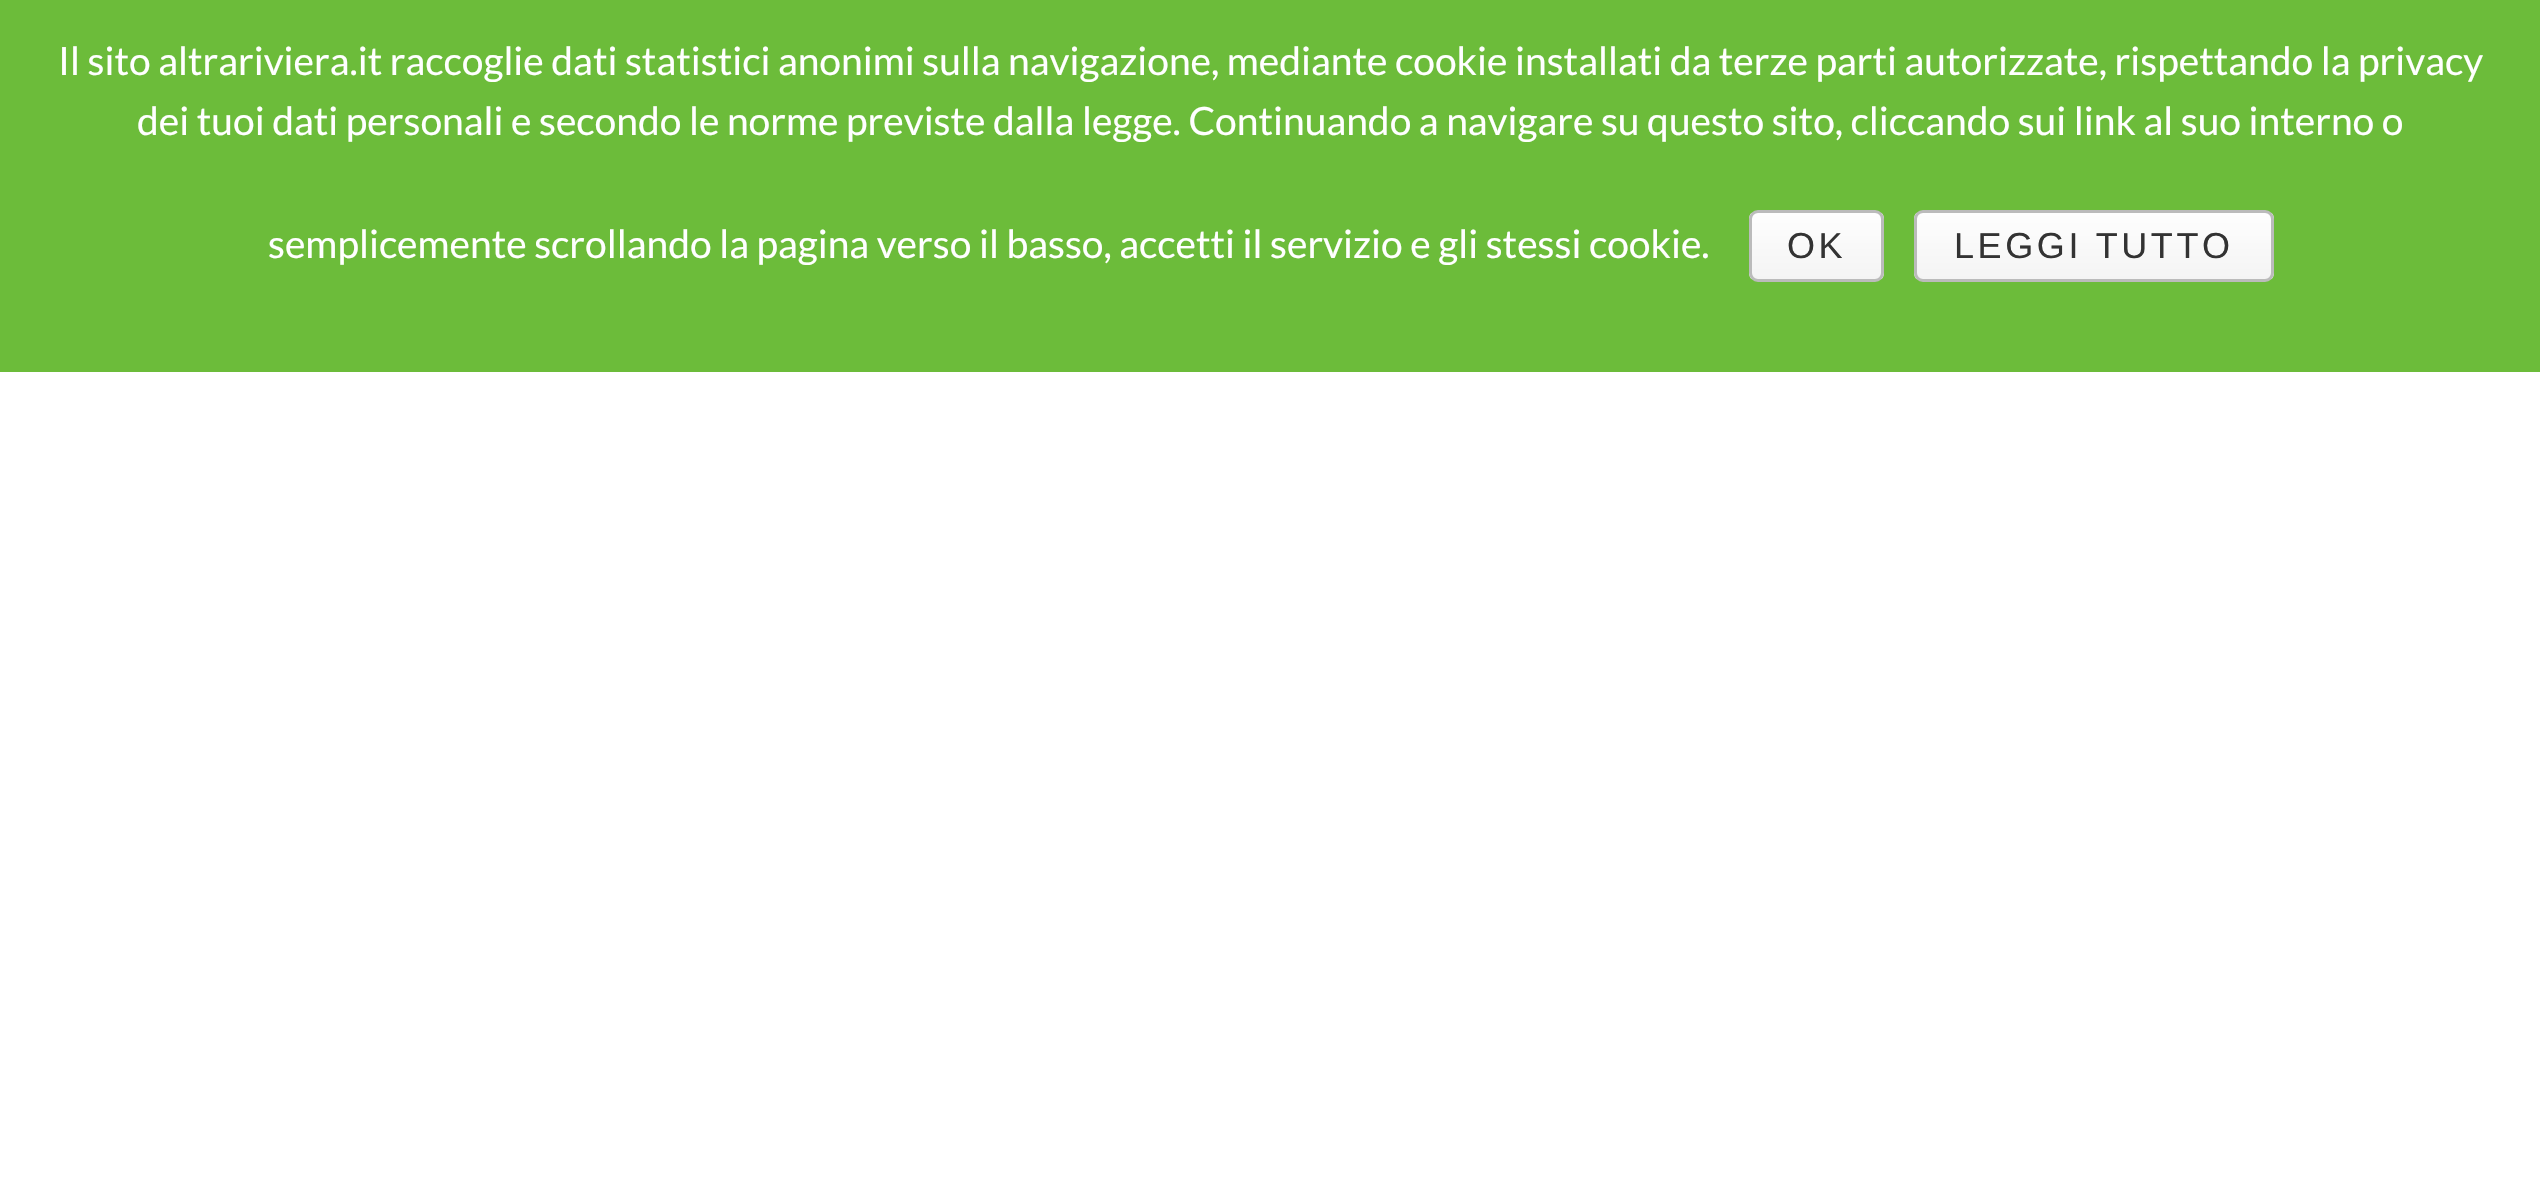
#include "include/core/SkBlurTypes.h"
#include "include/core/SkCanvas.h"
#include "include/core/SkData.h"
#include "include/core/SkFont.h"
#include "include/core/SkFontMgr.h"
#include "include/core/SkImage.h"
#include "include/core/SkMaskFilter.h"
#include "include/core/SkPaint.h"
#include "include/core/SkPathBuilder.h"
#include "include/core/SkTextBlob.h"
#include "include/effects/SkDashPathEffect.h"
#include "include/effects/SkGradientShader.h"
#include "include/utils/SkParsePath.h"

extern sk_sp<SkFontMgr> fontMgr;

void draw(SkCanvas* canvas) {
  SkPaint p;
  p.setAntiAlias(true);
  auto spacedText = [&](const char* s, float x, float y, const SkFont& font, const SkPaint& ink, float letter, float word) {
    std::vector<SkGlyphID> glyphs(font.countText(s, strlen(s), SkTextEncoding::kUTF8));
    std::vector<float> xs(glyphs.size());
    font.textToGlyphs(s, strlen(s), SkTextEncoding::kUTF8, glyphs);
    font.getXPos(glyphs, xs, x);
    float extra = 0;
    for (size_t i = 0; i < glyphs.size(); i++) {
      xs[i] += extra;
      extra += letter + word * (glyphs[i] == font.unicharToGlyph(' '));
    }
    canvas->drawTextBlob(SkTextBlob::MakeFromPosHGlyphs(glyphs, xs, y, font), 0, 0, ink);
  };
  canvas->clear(SK_ColorWHITE);
  p.setColor(SkColorSetRGB(108, 188, 58));
  canvas->drawRect(SkRect::MakeLTRB(0, 0, 2540, 372), p);
  canvas->save();
  canvas->clipPath(SkPathBuilder().moveTo(1758, 210).lineTo(1875, 210).cubicTo(1880, 210, 1884, 214, 1884, 219).lineTo(1884, 273).cubicTo(1884, 278, 1880, 282, 1875, 282).lineTo(1758, 282).cubicTo(1753, 282, 1749, 278, 1749, 273).lineTo(1749, 219).cubicTo(1749, 214, 1753, 210, 1758, 210).close().detach(), true);
  {
    const SkColor colors[] = {SkColorSetRGB(254, 254, 254), SkColorSetRGB(244, 244, 244)};
    const float stops[] = {0, 1};
    const SkPoint ends[] = {{1817, 213}, {1817, 279}};
    p.setShader(SkGradientShader::MakeLinear(ends, colors, stops, 2, SkTileMode::kClamp));
    p.setAlpha(255);
  }
  canvas->drawRect(SkRect::MakeLTRB(1749, 213, 1884, 279), p);
  canvas->restore();
  p.setStyle(SkPaint::kStroke_Style);
  p.setStrokeWidth(3);
  p.setShader(nullptr);
  p.setColor(SkColorSetRGB(187, 187, 187));
  canvas->drawRoundRect(SkRect::MakeLTRB(1750.5f, 211.5f, 1882.5f, 280.5f), 7.5f, 7.5f, p);
  canvas->save();
  canvas->clipPath(SkPathBuilder().moveTo(1923, 210).lineTo(2265, 210).cubicTo(2270, 210, 2274, 214, 2274, 219).lineTo(2274, 273).cubicTo(2274, 278, 2270, 282, 2265, 282).lineTo(1923, 282).cubicTo(1918, 282, 1914, 278, 1914, 273).lineTo(1914, 219).cubicTo(1914, 214, 1918, 210, 1923, 210).close().detach(), true);
  p.setStyle(SkPaint::kFill_Style);
  {
    const SkColor colors[] = {SkColorSetRGB(254, 254, 254), SkColorSetRGB(244, 244, 244)};
    const float stops[] = {0, 1};
    const SkPoint ends[] = {{2094, 213}, {2094, 279}};
    p.setShader(SkGradientShader::MakeLinear(ends, colors, stops, 2, SkTileMode::kClamp));
    p.setAlpha(255);
  }
  canvas->drawRect(SkRect::MakeLTRB(1914, 213, 2274, 279), p);
  canvas->restore();
  p.setStyle(SkPaint::kStroke_Style);
  p.setShader(nullptr);
  p.setColor(SkColorSetRGB(187, 187, 187));
  canvas->drawRoundRect(SkRect::MakeLTRB(1915.5f, 211.5f, 2272.5f, 280.5f), 7.5f, 7.5f, p);
  SkFont font1(fontMgr->matchFamilyStyle("Lato", SkFontStyle::Normal()), 39);
  font1.setSubpixel(true);
  p.setStyle(SkPaint::kFill_Style);
  p.setColor(SK_ColorWHITE);
  canvas->drawString("Il sito altrariviera.it raccoglie dati statistici anonimi sulla navigazione, mediante cookie installati da terze parti autorizzate, rispettando la privacy", 58, 75, font1, p);
  canvas->drawString("dei tuoi dati personali e secondo le norme previste dalla legge. Continuando a navigare su questo sito, cliccando sui link al suo interno o", 137, 135, font1, p);
  canvas->drawString("semplicemente scrollando la pagina verso il basso, accetti il servizio e gli stessi cookie.", 268, 258, font1, p);
  SkFont font2(fontMgr->matchFamilyStyle("Liberation Sans", SkFontStyle::Normal()), 36);
  font2.setSubpixel(true);
  p.setColor(SkColorSetRGB(51, 51, 51));
  spacedText("OK", 1787, 258, font2, p, 3.6f, 0);
  spacedText("LEGGI TUTTO", 1954, 258, font2, p, 3.6f, 0);
}
